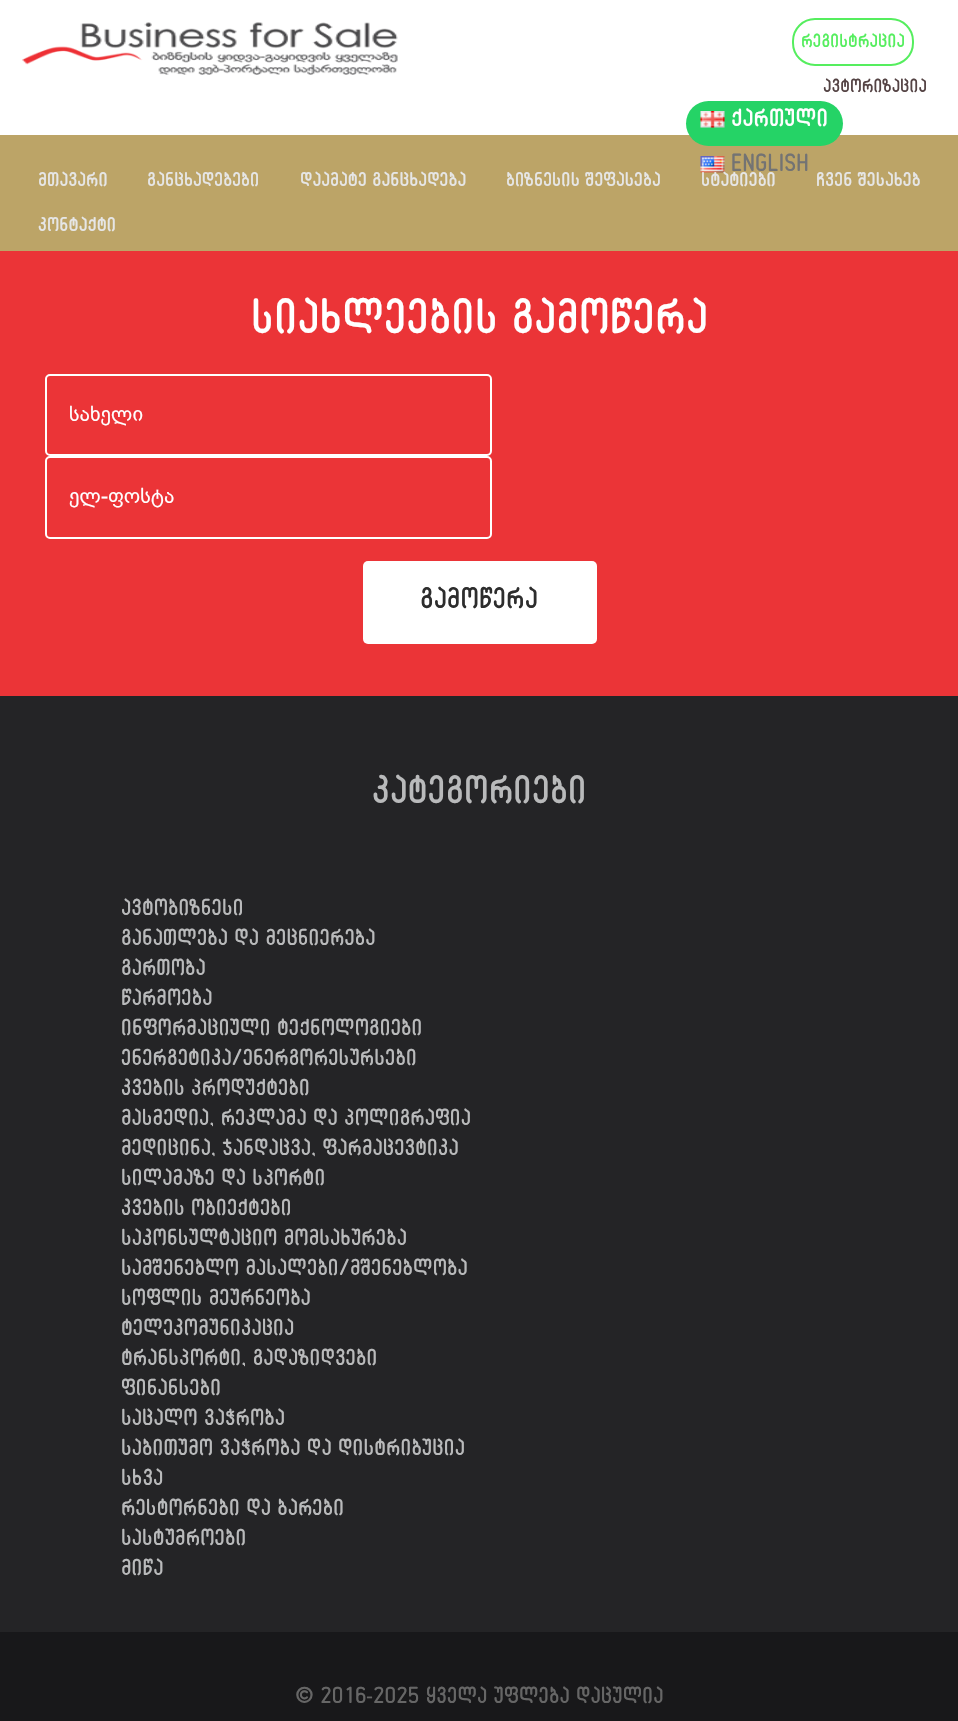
#include "include/core/SkBlurTypes.h"
#include "include/core/SkCanvas.h"
#include "include/core/SkData.h"
#include "include/core/SkFont.h"
#include "include/core/SkFontMgr.h"
#include "include/core/SkImage.h"
#include "include/core/SkMaskFilter.h"
#include "include/core/SkPaint.h"
#include "include/core/SkPathBuilder.h"
#include "include/core/SkTextBlob.h"
#include "include/effects/SkDashPathEffect.h"
#include "include/effects/SkGradientShader.h"
#include "include/utils/SkParsePath.h"

extern sk_sp<SkFontMgr> fontMgr;

void draw(SkCanvas* canvas) {
  SkPaint p;
  p.setAntiAlias(true);
  canvas->clear(SK_ColorWHITE);
  canvas->drawImageRect(SkImages::DeferredFromEncodedData(SkData::MakeFromFileName("images/1.png")), SkRect::MakeLTRB(22, 22, 398, 75), SkSamplingOptions());
  p.setStyle(SkPaint::kStroke_Style);
  p.setStrokeWidth(2);
  p.setColor(SkColorSetRGB(85, 238, 94));
  canvas->drawRoundRect(SkRect::MakeLTRB(793, 19, 913, 65), 22, 22, p);
  p.setStyle(SkPaint::kFill_Style);
  p.setColor(SkColorSetRGB(188, 164, 103));
  canvas->drawRect(SkRect::MakeLTRB(0, 135, 958, 251), p);
  p.setColor(SkColorSetRGB(37, 211, 102));
  canvas->drawRoundRect(SkRect::MakeLTRB(686, 101, 843, 146), 22.5f, 22.5f, p);
  canvas->drawImageRect(SkImages::DeferredFromEncodedData(SkData::MakeFromFileName("images/2.png")), SkRect::MakeLTRB(700, 111, 725, 128), SkSamplingOptions());
  canvas->drawImageRect(SkImages::DeferredFromEncodedData(SkData::MakeFromFileName("images/3.png")), SkRect::MakeLTRB(700, 156, 725, 173), SkSamplingOptions());
  p.setColor(SkColorSetRGB(235, 52, 55));
  canvas->drawRect(SkRect::MakeLTRB(0, 251, 958, 696), p);
  p.setStyle(SkPaint::kStroke_Style);
  p.setColor(SK_ColorWHITE);
  canvas->drawRoundRect(SkRect::MakeLTRB(46, 375, 491, 455), 4, 4, p);
  canvas->drawRoundRect(SkRect::MakeLTRB(46, 457, 491, 538), 4, 4, p);
  p.setStyle(SkPaint::kFill_Style);
  canvas->drawRoundRect(SkRect::MakeLTRB(363, 561, 597, 644), 5, 5, p);
  p.setColor(SkColorSetRGB(36, 36, 38));
  canvas->drawRect(SkRect::MakeLTRB(0, 696, 958, 1632), p);
  p.setColor(SkColorSetRGB(24, 24, 26));
  canvas->drawRect(SkRect::MakeLTRB(0, 1632, 958, 1721), p);
  SkFont font1(fontMgr->matchFamilyStyle("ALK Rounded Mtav", SkFontStyle(500, SkFontStyle::kNormal_Width, SkFontStyle::kUpright_Slant)), 17.25f);
  font1.setSubpixel(true);
  p.setColor(SkColorSetRGB(85, 238, 94));
  canvas->drawString("რეგისტრაცია", 801, 47, font1, p);
  p.setColor(SkColorSetRGB(84, 67, 68));
  canvas->drawString("ავტორიზაცია", 823, 92, font1, p);
  SkFont font2(fontMgr->matchFamilyStyle("ALK Rounded Mtav", SkFontStyle(500, SkFontStyle::kNormal_Width, SkFontStyle::kUpright_Slant)), 22.5f);
  font2.setSubpixel(true);
  p.setColor(SK_ColorWHITE);
  canvas->drawString("ქართული", 731, 126, font2, p);
  p.setColor(SkColorSetRGB(115, 115, 115));
  canvas->drawString("ENGLISH", 731, 171, font2, p);
  SkFont font3(fontMgr->matchFamilyStyle("ALK Rounded Mtav", SkFontStyle(500, SkFontStyle::kNormal_Width, SkFontStyle::kUpright_Slant)), 18);
  font3.setSubpixel(true);
  p.setColor(SkColorSetRGB(230, 230, 230));
  canvas->drawString("მთავარი", 38, 186, font3, p);
  canvas->drawString("განცხადებები", 147, 186, font3, p);
  canvas->drawString("დაამატე განცხადება", 300, 186, font3, p);
  canvas->drawString("ბიზნესის შეფასება", 506, 186, font3, p);
  canvas->drawString("სტატიები", 701, 186, font3, p);
  canvas->drawString("ჩვენ შესახებ", 816, 186, font3, p);
  canvas->drawString("კონტაქტი", 38, 231, font3, p);
  SkFont font4(fontMgr->matchFamilyStyle("ALK Rounded Mtav", SkFontStyle(500, SkFontStyle::kNormal_Width, SkFontStyle::kUpright_Slant)), 45);
  font4.setSubpixel(true);
  p.setColor(SK_ColorWHITE);
  canvas->drawString("სიახლეების გამოწერა", 251, 333, font4, p);
  SkFont font5(fontMgr->matchFamilyStyle("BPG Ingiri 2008", SkFontStyle::Normal()), 21);
  font5.setSubpixel(true);
  canvas->drawString("სახელი", 69, 421, font5, p);
  canvas->drawString("ელ-ფოსტა", 69, 503, font5, p);
  SkFont font6(fontMgr->matchFamilyStyle("ALK Rounded Mtav", SkFontStyle(500, SkFontStyle::kNormal_Width, SkFontStyle::kUpright_Slant)), 27);
  font6.setSubpixel(true);
  p.setColor(SkColorSetRGB(45, 45, 45));
  canvas->drawString("გამოწერა", 420, 608, font6, p);
  SkFont font7(fontMgr->matchFamilyStyle("ALK Rounded Mtav", SkFontStyle(500, SkFontStyle::kNormal_Width, SkFontStyle::kUpright_Slant)), 36);
  font7.setSubpixel(true);
  p.setColor(SkColorSetRGB(185, 186, 187));
  canvas->drawString("კატეგორიები", 372, 803, font7, p);
  SkFont font8(fontMgr->matchFamilyStyle("ALK Rounded Mtav", SkFontStyle(500, SkFontStyle::kNormal_Width, SkFontStyle::kUpright_Slant)), 21);
  font8.setSubpixel(true);
  canvas->drawString("ავტობიზნესი", 121, 915, font8, p);
  canvas->drawString("განათლება და მეცნიერება", 121, 945, font8, p);
  canvas->drawString("გართობა", 121, 975, font8, p);
  canvas->drawString("წარმოება", 121, 1005, font8, p);
  canvas->drawString("ინფორმაციული ტექნოლოგიები", 121, 1035, font8, p);
  canvas->drawString("ენერგეტიკა/ენერგორესურსები", 121, 1065, font8, p);
  canvas->drawString("კვების პროდუქტები", 121, 1095, font8, p);
  canvas->drawString("მასმედია, რეკლამა და პოლიგრაფია", 121, 1125, font8, p);
  canvas->drawString("მედიცინა, ჯანდაცვა, ფარმაცევტიკა", 121, 1155, font8, p);
  canvas->drawString("სილამაზე და სპორტი", 121, 1185, font8, p);
  canvas->drawString("კვების ობიექტები", 121, 1215, font8, p);
  canvas->drawString("საკონსულტაციო მომსახურება", 121, 1245, font8, p);
  canvas->drawString("სამშენებლო მასალები/მშენებლობა", 121, 1275, font8, p);
  canvas->drawString("სოფლის მეურნეობა", 121, 1305, font8, p);
  canvas->drawString("ტელეკომუნიკაცია", 121, 1335, font8, p);
  canvas->drawString("ტრანსპორტი, გადაზიდვები", 121, 1365, font8, p);
  canvas->drawString("ფინანსები", 121, 1395, font8, p);
  canvas->drawString("საცალო ვაჭრობა", 121, 1425, font8, p);
  canvas->drawString("საბითუმო ვაჭრობა და დისტრიბუცია", 121, 1455, font8, p);
  canvas->drawString("სხვა", 121, 1485, font8, p);
  canvas->drawString("რესტორნები და ბარები", 121, 1515, font8, p);
  canvas->drawString("სასტუმროები", 121, 1545, font8, p);
  canvas->drawString("მიწა", 121, 1575, font8, p);
  p.setColor(SkColorSetRGB(102, 102, 102));
  canvas->drawString("© 2016", 295, 1703, font8, p);
  SkFont font9(fontMgr->matchFamilyStyle("Liberation Sans", SkFontStyle::Normal()), 21);
  font9.setSubpixel(true);
  canvas->drawString("-", 366, 1703, font9, p);
  canvas->drawString("2025 ყველა უფლება დაცულია", 373, 1703, font8, p);
}
